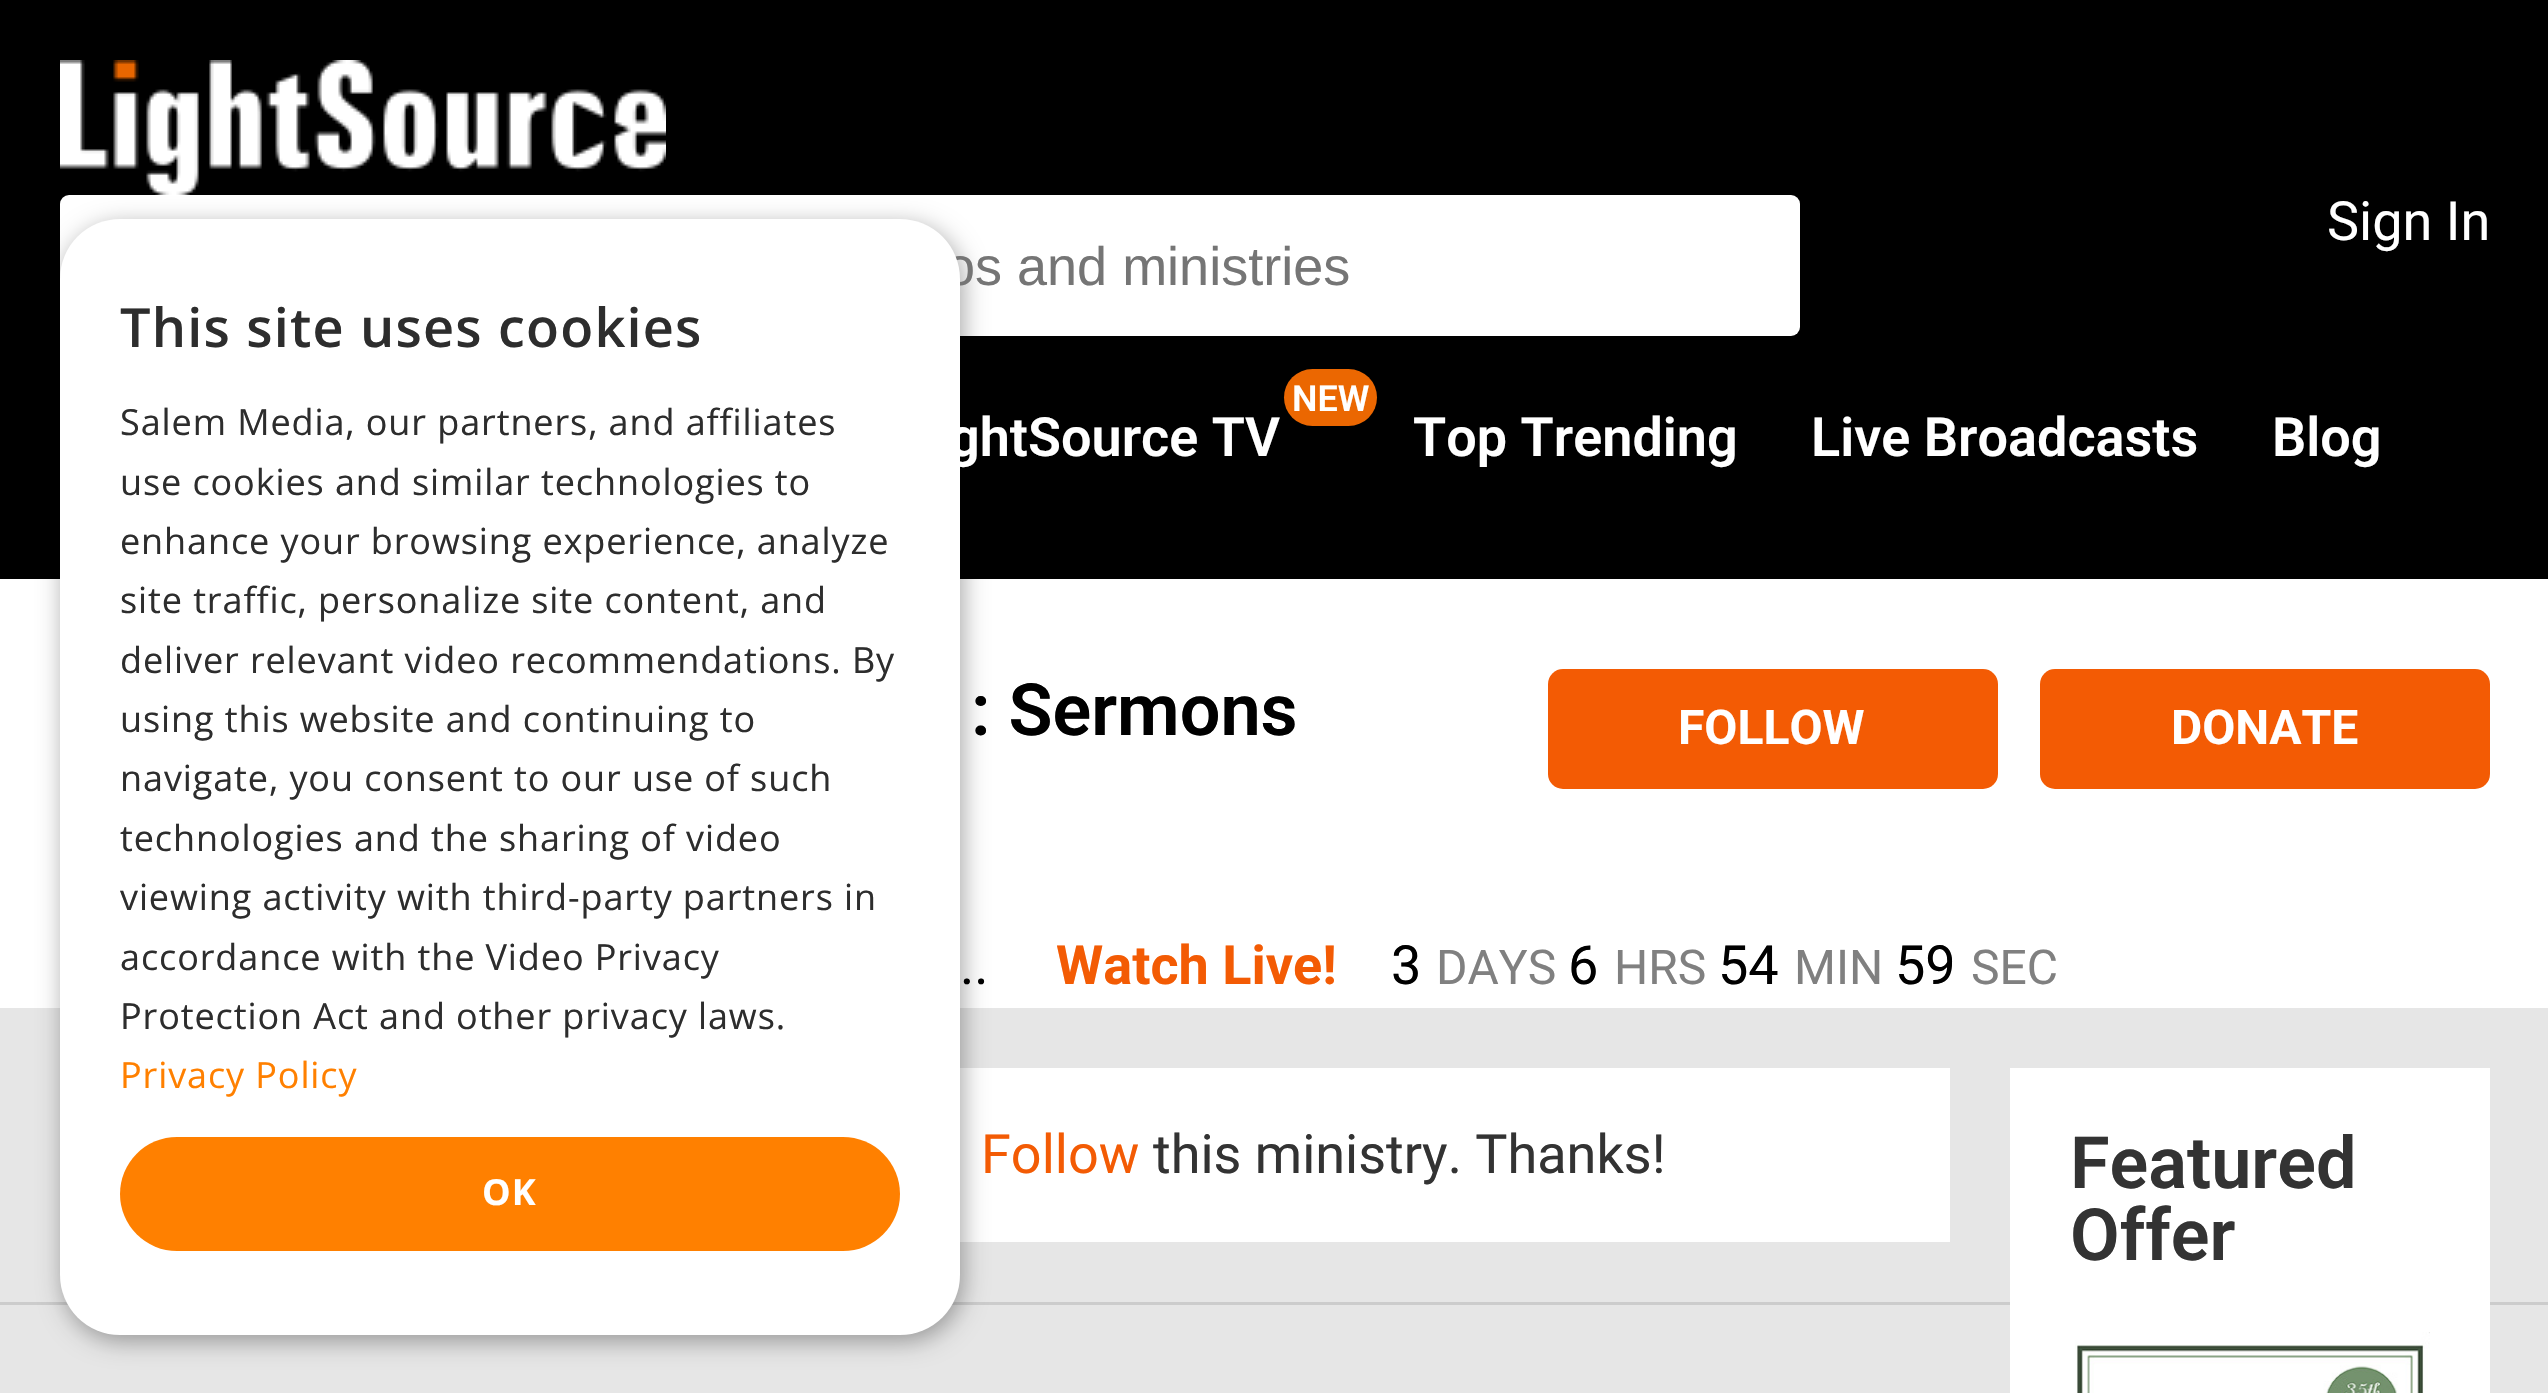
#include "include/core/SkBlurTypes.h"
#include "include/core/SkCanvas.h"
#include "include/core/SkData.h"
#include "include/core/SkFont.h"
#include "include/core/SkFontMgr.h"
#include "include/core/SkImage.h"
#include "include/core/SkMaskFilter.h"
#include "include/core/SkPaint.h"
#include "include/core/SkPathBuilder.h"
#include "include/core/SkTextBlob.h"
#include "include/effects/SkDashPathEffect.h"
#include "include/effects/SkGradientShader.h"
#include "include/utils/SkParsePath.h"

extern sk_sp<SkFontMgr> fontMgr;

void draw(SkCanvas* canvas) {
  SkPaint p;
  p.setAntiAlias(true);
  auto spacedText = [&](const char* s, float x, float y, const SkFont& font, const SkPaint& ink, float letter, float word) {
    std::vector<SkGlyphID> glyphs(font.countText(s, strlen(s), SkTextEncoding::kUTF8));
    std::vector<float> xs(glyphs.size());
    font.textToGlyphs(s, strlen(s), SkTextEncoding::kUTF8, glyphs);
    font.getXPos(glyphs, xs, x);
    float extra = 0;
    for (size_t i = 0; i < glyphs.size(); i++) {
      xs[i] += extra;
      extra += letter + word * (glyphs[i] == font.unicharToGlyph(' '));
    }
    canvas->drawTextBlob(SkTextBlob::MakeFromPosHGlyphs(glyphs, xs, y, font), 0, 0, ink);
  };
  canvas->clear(SkColorSetRGB(230, 230, 230));
  p.setColor(SK_ColorBLACK);
  canvas->drawRect(SkRect::MakeLTRB(0, 0, 2548, 579), p);
  canvas->drawImageRect(SkImages::DeferredFromEncodedData(SkData::MakeFromFileName("images/1.png")), SkRect::MakeLTRB(60, 60, 666, 195), SkSamplingOptions());
  p.setColor(SK_ColorWHITE);
  canvas->drawRoundRect(SkRect::MakeLTRB(60, 195, 1800, 336), 9, 9, p);
  canvas->drawRect(SkRect::MakeLTRB(0, 579, 2548, 1008), p);
  canvas->drawRect(SkRect::MakeLTRB(960, 1068, 1950, 1242), p);
  p.setColor(SkColorSetRGB(204, 204, 204));
  canvas->drawRect(SkRect::MakeLTRB(0, 1302, 2548, 1305), p);
  p.setColor(SkColorSetARGB(89, 0, 0, 0));
  p.setMaskFilter(SkMaskFilter::MakeBlur(kNormal_SkBlurStyle, 12));
  canvas->drawRoundRect(SkRect::MakeLTRB(63, 225, 963, 1341), 60, 60, p);
  p.setMaskFilter(nullptr);
  p.setColor(SkColorSetRGB(235, 103, 1));
  canvas->drawRoundRect(SkRect::MakeLTRB(1284, 369, 1377, 426), 28.5f, 28.5f, p);
  p.setColor(SkColorSetRGB(243, 91, 4));
  canvas->drawRoundRect(SkRect::MakeLTRB(1548, 669, 1998, 789), 15, 15, p);
  canvas->drawRoundRect(SkRect::MakeLTRB(2040, 669, 2490, 789), 15, 15, p);
  p.setColor(SK_ColorWHITE);
  canvas->drawRect(SkRect::MakeLTRB(2010, 1068, 2490, 1393), p);
  canvas->drawImageRect(SkImages::DeferredFromEncodedData(SkData::MakeFromFileName("images/2.png")), SkRect::MakeLTRB(2075, 1332, 2430, 1393), SkSamplingOptions());
  SkFont font1(fontMgr->matchFamilyStyle("Roboto", SkFontStyle::Normal()), 54);
  font1.setSubpixel(true);
  canvas->drawString("Sign In", 2327, 240, font1, p);
  SkFont font2(fontMgr->matchFamilyStyle("Liberation Sans", SkFontStyle::Normal()), 54);
  font2.setSubpixel(true);
  p.setColor(SkColorSetRGB(117, 117, 117));
  canvas->drawString("os and ministries", 945, 285, font2, p);
  p.setColor(SK_ColorWHITE);
  canvas->drawRoundRect(SkRect::MakeLTRB(60, 219, 960, 1335), 60, 60, p);
  p.setColor(SkColorSetRGB(255, 128, 0));
  canvas->drawRoundRect(SkRect::MakeLTRB(120, 1137, 900, 1251), 57, 57, p);
  SkFont font3(fontMgr->matchFamilyStyle("Open Sans", SkFontStyle::Bold()), 36);
  font3.setSubpixel(true);
  p.setColor(SK_ColorWHITE);
  spacedText("OK", 482, 1205, font3, p, 1.2f, 0);
  SkFont font4(fontMgr->matchFamilyStyle("Open Sans", SkFontStyle::Normal()), 36);
  font4.setSubpixel(true);
  p.setColor(SkColorSetRGB(255, 128, 0));
  spacedText("Privacy Policy", 120, 1088, font4, p, 0.9f, 0);
  p.setColor(SkColorSetRGB(45, 45, 45));
  spacedText("Protection Act and other privacy laws.", 120, 1029, font4, p, 0.9f, 0);
  spacedText("accordance with the Video Privacy", 120, 970, font4, p, 0.9f, 0);
  spacedText("viewing activity with third-party partners in", 120, 910, font4, p, 0.9f, 0);
  spacedText("technologies and the sharing of video", 120, 851, font4, p, 0.9f, 0);
  spacedText("navigate, you consent to our use of such", 120, 791, font4, p, 0.9f, 0);
  spacedText("using this website and continuing to", 120, 732, font4, p, 0.9f, 0);
  spacedText("deliver relevant video recommendations. By", 120, 673, font4, p, 0.9f, 0);
  spacedText("site traffic, personalize site content, and", 120, 613, font4, p, 0.9f, 0);
  spacedText("enhance your browsing experience, analyze", 120, 554, font4, p, 0.9f, 0);
  spacedText("use cookies and similar technologies to", 120, 495, font4, p, 0.9f, 0);
  spacedText("Salem Media, our partners, and affiliates", 120, 435, font4, p, 0.9f, 0);
  SkFont font5(fontMgr->matchFamilyStyle("Open Sans", SkFontStyle(600, SkFontStyle::kNormal_Width, SkFontStyle::kUpright_Slant)), 54);
  font5.setSubpixel(true);
  spacedText("This site uses cookies", 120, 347, font5, p, 1.2f, 0);
  SkFont font6(fontMgr->matchFamilyStyle("Roboto", SkFontStyle(600, SkFontStyle::kNormal_Width, SkFontStyle::kUpright_Slant)), 36);
  font6.setSubpixel(true);
  p.setColor(SK_ColorWHITE);
  canvas->drawString("NEW", 1292, 411, font6, p);
  SkFont font7(fontMgr->matchFamilyStyle("Roboto", SkFontStyle(600, SkFontStyle::kNormal_Width, SkFontStyle::kUpright_Slant)), 54);
  font7.setSubpixel(true);
  canvas->drawString("ghtSource TV", 949, 456, font7, p);
  canvas->drawString("Top Trending", 1413, 456, font7, p);
  canvas->drawString("Live Broadcasts", 1811, 456, font7, p);
  canvas->drawString("Blog", 2272, 456, font7, p);
  SkFont font8(fontMgr->matchFamilyStyle("Roboto", SkFontStyle(600, SkFontStyle::kNormal_Width, SkFontStyle::kUpright_Slant)), 72);
  font8.setSubpixel(true);
  p.setColor(SK_ColorBLACK);
  canvas->drawString(": Sermons", 971, 735, font8, p);
  SkFont font9(fontMgr->matchFamilyStyle("Roboto", SkFontStyle::Bold()), 48);
  font9.setSubpixel(true);
  p.setColor(SK_ColorWHITE);
  canvas->drawString("FOLLOW", 1678, 744, font9, p);
  canvas->drawString("DONATE", 2171, 744, font9, p);
  p.setColor(SK_ColorBLACK);
  canvas->drawString("..", 960, 984, font1, p);
  SkFont font10(fontMgr->matchFamilyStyle("Roboto", SkFontStyle::Bold()), 54);
  font10.setSubpixel(true);
  p.setColor(SkColorSetRGB(243, 91, 4));
  canvas->drawString("Watch Live!", 1056, 984, font10, p);
  p.setColor(SK_ColorBLACK);
  canvas->drawString("3", 1391, 984, font1, p);
  SkFont font11(fontMgr->matchFamilyStyle("Roboto", SkFontStyle::Normal()), 48);
  font11.setSubpixel(true);
  p.setColor(SkColorSetRGB(128, 128, 128));
  canvas->drawString("DAYS", 1436, 984, font11, p);
  p.setColor(SK_ColorBLACK);
  canvas->drawString("6", 1568, 984, font1, p);
  p.setColor(SkColorSetRGB(128, 128, 128));
  canvas->drawString("HRS", 1614, 984, font11, p);
  p.setColor(SK_ColorBLACK);
  canvas->drawString("54", 1718, 984, font1, p);
  p.setColor(SkColorSetRGB(128, 128, 128));
  canvas->drawString("MIN", 1794, 984, font11, p);
  p.setColor(SK_ColorBLACK);
  canvas->drawString("59", 1895, 984, font1, p);
  p.setColor(SkColorSetRGB(128, 128, 128));
  canvas->drawString("SEC", 1971, 984, font11, p);
  p.setColor(SkColorSetRGB(243, 91, 4));
  canvas->drawString("Follow", 981, 1173, font1, p);
  p.setColor(SkColorSetRGB(51, 51, 51));
  canvas->drawString("this ministry. Thanks!", 1153, 1173, font1, p);
  canvas->drawString("Featured", 2070, 1188, font8, p);
  canvas->drawString("Offer", 2070, 1260, font8, p);
}
